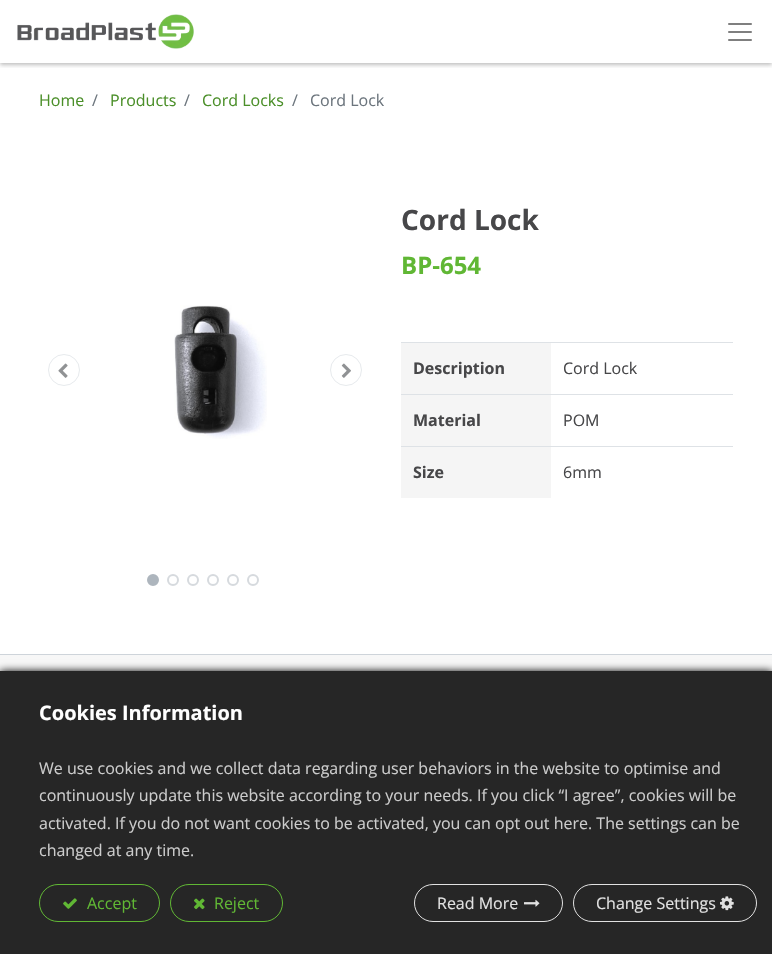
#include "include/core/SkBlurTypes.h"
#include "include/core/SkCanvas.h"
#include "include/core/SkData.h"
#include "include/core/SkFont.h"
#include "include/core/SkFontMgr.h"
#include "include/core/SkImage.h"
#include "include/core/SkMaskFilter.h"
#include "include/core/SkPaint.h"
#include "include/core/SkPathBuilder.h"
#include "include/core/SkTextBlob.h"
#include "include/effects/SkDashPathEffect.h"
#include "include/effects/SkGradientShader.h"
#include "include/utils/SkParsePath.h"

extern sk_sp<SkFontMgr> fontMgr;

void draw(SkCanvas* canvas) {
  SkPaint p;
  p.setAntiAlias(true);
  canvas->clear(SK_ColorWHITE);
  canvas->save();
  canvas->clipRect(SkRect::MakeLTRB(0, 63, 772, 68));
  p.setColor(SkColorSetARGB(64, 0, 0, 0));
  p.setMaskFilter(SkMaskFilter::MakeBlur(kNormal_SkBlurStyle, 2));
  canvas->drawRect(SkRect::MakeLTRB(0, 2, 772, 65), p);
  p.setMaskFilter(nullptr);
  canvas->restore();
  canvas->drawImageRect(SkImages::DeferredFromEncodedData(SkData::MakeFromFileName("images/1.png")), SkRect::MakeLTRB(17, 14, 194, 49), SkSamplingOptions());
  canvas->drawImageRect(SkImages::DeferredFromEncodedData(SkData::MakeFromFileName("images/2.png")), SkRect::MakeLTRB(728, 23, 752, 41), SkSamplingOptions());
  p.setStyle(SkPaint::kStroke_Style);
  p.setStrokeWidth(1);
  p.setColor(SkColorSetRGB(231, 234, 237));
  canvas->drawCircle(64, 370, 15.5f, p);
  canvas->drawImageRect(SkImages::DeferredFromEncodedData(SkData::MakeFromFileName("images/3.png")), SkRect::MakeLTRB(58, 363, 68, 378), SkSamplingOptions());
  canvas->drawImageRect(SkImages::DeferredFromEncodedData(SkData::MakeFromFileName("images/4.png")), SkRect::MakeLTRB(174, 305, 267, 439), SkSamplingOptions());
  canvas->drawCircle(346, 370, 15.5f, p);
  canvas->drawImageRect(SkImages::DeferredFromEncodedData(SkData::MakeFromFileName("images/5.png")), SkRect::MakeLTRB(341, 363, 351, 378), SkSamplingOptions());
  p.setStyle(SkPaint::kFill_Style);
  p.setColor(SkColorSetRGB(173, 181, 189));
  canvas->drawCircle(153, 580, 5, p);
  p.setStyle(SkPaint::kStroke_Style);
  p.setStrokeWidth(2);
  canvas->drawCircle(153, 580, 5, p);
  p.setColor(SkColorSetRGB(214, 218, 222));
  canvas->drawCircle(173, 580, 5, p);
  canvas->drawCircle(193, 580, 5, p);
  canvas->drawCircle(213, 580, 5, p);
  canvas->drawCircle(233, 580, 5, p);
  canvas->drawCircle(253, 580, 5, p);
  p.setStyle(SkPaint::kFill_Style);
  p.setColor(SkColorSetRGB(245, 245, 245));
  canvas->drawRect(SkRect::MakeLTRB(401, 343, 551, 394), p);
  p.setColor(SkColorSetRGB(222, 226, 230));
  canvas->drawRect(SkRect::MakeLTRB(401, 342, 733, 343), p);
  p.setColor(SkColorSetRGB(245, 245, 245));
  canvas->drawRect(SkRect::MakeLTRB(401, 395, 551, 446), p);
  p.setColor(SkColorSetRGB(222, 226, 230));
  canvas->drawRect(SkRect::MakeLTRB(401, 394, 733, 395), p);
  p.setColor(SkColorSetRGB(245, 245, 245));
  canvas->drawRect(SkRect::MakeLTRB(401, 447, 551, 498), p);
  p.setColor(SkColorSetRGB(222, 226, 230));
  canvas->drawRect(SkRect::MakeLTRB(401, 446, 733, 447), p);
  p.setColor(SkColorSetRGB(247, 247, 247));
  canvas->drawRect(SkRect::MakeLTRB(0, 655, 772, 671), p);
  p.setColor(SkColorSetRGB(206, 212, 218));
  canvas->drawRect(SkRect::MakeLTRB(0, 654, 772, 655), p);
  p.setColor(SK_ColorBLACK);
  p.setMaskFilter(SkMaskFilter::MakeBlur(kNormal_SkBlurStyle, 4));
  canvas->drawRect(SkRect::MakeLTRB(0, 671, 772, 954), p);
  p.setMaskFilter(nullptr);
  p.setColor(SkColorSetRGB(38, 38, 38));
  canvas->drawRect(SkRect::MakeLTRB(0, 671, 772, 954), p);
  p.setStyle(SkPaint::kStroke_Style);
  p.setStrokeWidth(1);
  p.setColor(SkColorSetRGB(96, 183, 52));
  canvas->drawRoundRect(SkRect::MakeLTRB(39.5f, 884.5f, 159.5f, 921.5f), 18.5f, 18.5f, p);
  canvas->drawImageRect(SkImages::DeferredFromEncodedData(SkData::MakeFromFileName("images/6.png")), SkRect::MakeLTRB(63, 898, 77, 909), SkSamplingOptions());
  canvas->drawRoundRect(SkRect::MakeLTRB(170.5f, 884.5f, 282.5f, 921.5f), 18.5f, 18.5f, p);
  canvas->drawImageRect(SkImages::DeferredFromEncodedData(SkData::MakeFromFileName("images/7.png")), SkRect::MakeLTRB(194, 898, 205, 910), SkSamplingOptions());
  p.setColor(SkColorSetRGB(225, 225, 225));
  canvas->drawRoundRect(SkRect::MakeLTRB(414.5f, 884.5f, 562.5f, 921.5f), 18.5f, 18.5f, p);
  canvas->drawImageRect(SkImages::DeferredFromEncodedData(SkData::MakeFromFileName("images/8.png")), SkRect::MakeLTRB(524, 899, 540, 907), SkSamplingOptions());
  canvas->drawRoundRect(SkRect::MakeLTRB(573.5f, 884.5f, 756.5f, 921.5f), 18.5f, 18.5f, p);
  canvas->drawImageRect(SkImages::DeferredFromEncodedData(SkData::MakeFromFileName("images/9.png")), SkRect::MakeLTRB(720, 896, 734, 911), SkSamplingOptions());
  SkFont font1(fontMgr->matchFamilyStyle("Open Sans", SkFontStyle::Normal()), 16);
  font1.setSubpixel(true);
  p.setStyle(SkPaint::kFill_Style);
  p.setColor(SkColorSetRGB(75, 143, 41));
  canvas->drawString("Home", 39, 106, font1, p);
  p.setColor(SkColorSetRGB(108, 117, 125));
  canvas->drawString("/", 92, 106, font1, p);
  p.setColor(SkColorSetRGB(75, 143, 41));
  canvas->drawString("Products", 110, 106, font1, p);
  p.setColor(SkColorSetRGB(108, 117, 125));
  canvas->drawString("/", 184, 106, font1, p);
  p.setColor(SkColorSetRGB(75, 143, 41));
  canvas->drawString("Cord Locks", 202, 106, font1, p);
  p.setColor(SkColorSetRGB(108, 117, 125));
  canvas->drawString("/", 292, 106, font1, p);
  canvas->drawString("Cord Lock", 310, 106, font1, p);
  SkFont font2(fontMgr->matchFamilyStyle("Open Sans", SkFontStyle::Bold()), 28);
  font2.setSubpixel(true);
  p.setColor(SkColorSetRGB(71, 71, 73));
  canvas->drawString("Cord Lock", 401, 230, font2, p);
  SkFont font3(fontMgr->matchFamilyStyle("Open Sans", SkFontStyle::Bold()), 24);
  font3.setSubpixel(true);
  p.setColor(SkColorSetRGB(96, 183, 52));
  canvas->drawString("BP-654", 401, 274, font3, p);
  SkFont font4(fontMgr->matchFamilyStyle("Open Sans", SkFontStyle::Bold()), 16);
  font4.setSubpixel(true);
  p.setColor(SkColorSetRGB(71, 71, 73));
  canvas->drawString("Description", 413, 374, font4, p);
  canvas->drawString("Cord Lock", 563, 374, font1, p);
  canvas->drawString("Material", 413, 426, font4, p);
  canvas->drawString("POM", 563, 426, font1, p);
  canvas->drawString("Size", 413, 478, font4, p);
  canvas->drawString("6mm", 563, 478, font1, p);
  SkFont font5(fontMgr->matchFamilyStyle("Open Sans", SkFontStyle::Bold()), 20);
  font5.setSubpixel(true);
  p.setColor(SK_ColorWHITE);
  canvas->drawString("Cookies Information", 39, 720, font5, p);
  p.setColor(SkColorSetRGB(204, 204, 204));
  canvas->drawString("We use cookies and we collect data regarding user behaviors in the website to optimise and", 39, 774, font1, p);
  canvas->drawString("continuously update this website according to your needs. If you click “I agree”, cookies will be", 39, 801, font1, p);
  canvas->drawString("activated. If you do not want cookies to be activated, you can opt out here. The settings can be", 39, 829, font1, p);
  canvas->drawString("changed at any time.", 39, 856, font1, p);
  p.setColor(SkColorSetRGB(96, 183, 52));
  canvas->drawString("Accept", 87, 909, font1, p);
  canvas->drawString("Reject", 214, 909, font1, p);
  p.setColor(SkColorSetRGB(225, 225, 225));
  canvas->drawString("Read More", 437, 909, font1, p);
  canvas->drawString("Change Settings", 596, 909, font1, p);
}
